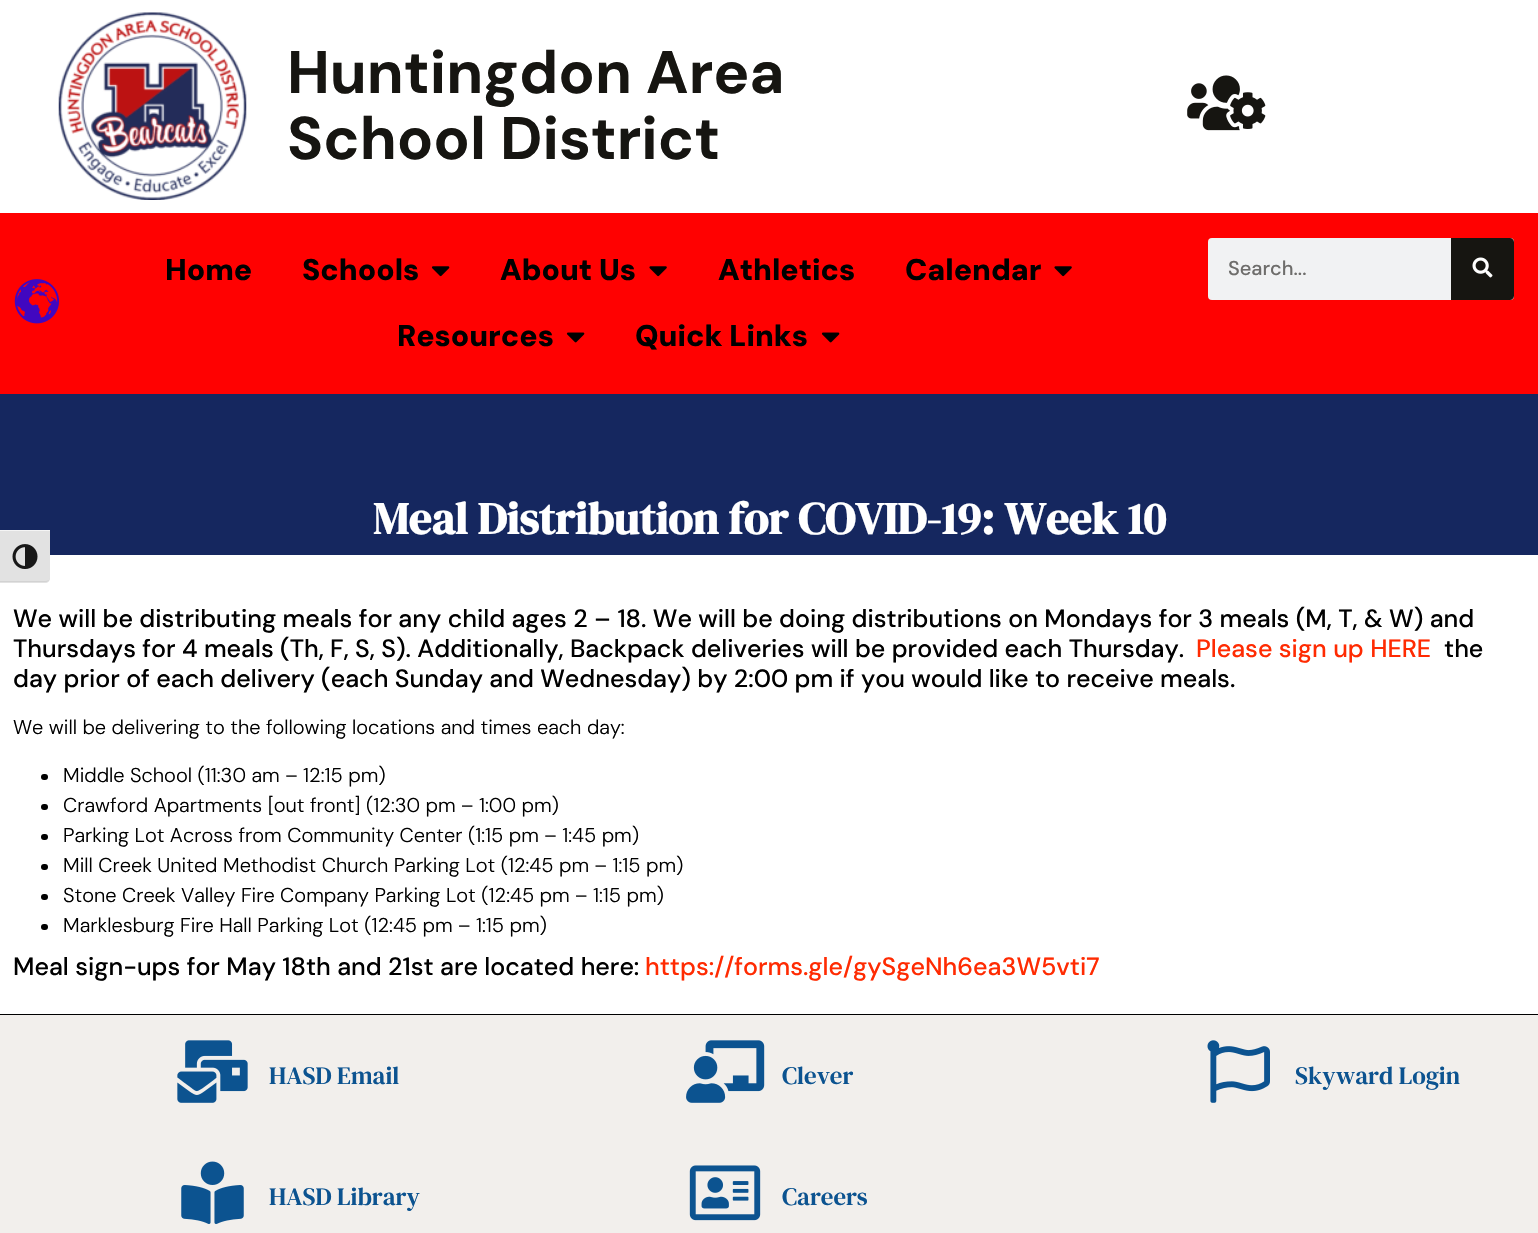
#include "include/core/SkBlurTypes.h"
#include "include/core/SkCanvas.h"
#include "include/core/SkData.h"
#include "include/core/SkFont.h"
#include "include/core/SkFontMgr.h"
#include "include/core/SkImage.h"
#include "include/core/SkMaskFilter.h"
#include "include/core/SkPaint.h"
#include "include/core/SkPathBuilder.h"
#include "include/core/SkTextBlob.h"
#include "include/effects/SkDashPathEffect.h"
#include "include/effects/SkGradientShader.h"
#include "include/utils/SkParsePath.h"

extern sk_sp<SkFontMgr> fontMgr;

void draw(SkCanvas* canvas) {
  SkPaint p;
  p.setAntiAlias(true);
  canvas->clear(SK_ColorWHITE);
  canvas->drawImageRect(SkImages::DeferredFromEncodedData(SkData::MakeFromFileName("images/1.png")), SkRect::MakeLTRB(58, 12, 247, 200), SkSamplingOptions());
  canvas->drawImageRect(SkImages::DeferredFromEncodedData(SkData::MakeFromFileName("images/2.png")), SkRect::MakeLTRB(1187, 75, 1266, 131), SkSamplingOptions());
  p.setColor(SkColorSetRGB(255, 1, 1));
  canvas->drawRect(SkRect::MakeLTRB(0, 213, 1538, 394), p);
  canvas->drawImageRect(SkImages::DeferredFromEncodedData(SkData::MakeFromFileName("images/3.png")), SkRect::MakeLTRB(431, 266, 450, 277), SkSamplingOptions());
  canvas->drawImageRect(SkImages::DeferredFromEncodedData(SkData::MakeFromFileName("images/4.png")), SkRect::MakeLTRB(649, 266, 667, 277), SkSamplingOptions());
  canvas->drawImageRect(SkImages::DeferredFromEncodedData(SkData::MakeFromFileName("images/4.png")), SkRect::MakeLTRB(1054, 266, 1072, 277), SkSamplingOptions());
  canvas->drawImageRect(SkImages::DeferredFromEncodedData(SkData::MakeFromFileName("images/5.png")), SkRect::MakeLTRB(566, 332, 585, 343), SkSamplingOptions());
  canvas->drawImageRect(SkImages::DeferredFromEncodedData(SkData::MakeFromFileName("images/5.png")), SkRect::MakeLTRB(821, 332, 840, 343), SkSamplingOptions());
  p.setColor(SkColorSetRGB(241, 242, 243));
  canvas->drawRoundRect(SkRect::MakeLTRB(1208, 238, 1514, 300), 4, 4, p);
  p.setColor(SkColorSetRGB(22, 21, 17));
  canvas->drawPath(SkPathBuilder().moveTo(1451, 238).lineTo(1510, 238).cubicTo(1512, 238, 1514, 240, 1514, 242).lineTo(1514, 296).cubicTo(1514, 298, 1512, 300, 1510, 300).lineTo(1451, 300).close().detach(), p);
  canvas->drawImageRect(SkImages::DeferredFromEncodedData(SkData::MakeFromFileName("images/6.png")), SkRect::MakeLTRB(1472, 257, 1493, 278), SkSamplingOptions());
  canvas->drawImageRect(SkImages::DeferredFromEncodedData(SkData::MakeFromFileName("images/7.png")), SkRect::MakeLTRB(14, 279, 60, 324), SkSamplingOptions());
  p.setColor(SkColorSetRGB(21, 39, 95));
  canvas->drawRect(SkRect::MakeLTRB(0, 394, 1538, 555), p);
  p.setColor(SK_ColorBLACK);
  canvas->drawRoundRect(SkRect::MakeLTRB(41, 774, 48, 780), 3, 3, p);
  canvas->drawRoundRect(SkRect::MakeLTRB(41, 804, 48, 810), 3, 3, p);
  canvas->drawRoundRect(SkRect::MakeLTRB(41, 834, 48, 840), 3, 3, p);
  canvas->drawRoundRect(SkRect::MakeLTRB(41, 864, 48, 870), 3, 3, p);
  canvas->drawRoundRect(SkRect::MakeLTRB(41, 894, 48, 900), 3, 3, p);
  canvas->drawRoundRect(SkRect::MakeLTRB(41, 924, 48, 930), 3, 3, p);
  p.setColor(SkColorSetRGB(226, 226, 226));
  canvas->drawPath(SkPathBuilder().moveTo(0, 530).lineTo(50, 530).lineTo(50, 578).cubicTo(50, 581, 48, 583, 45, 583).lineTo(0, 583).close().detach(), p);
  p.setColor(SkColorSetRGB(245, 245, 245));
  canvas->drawRect(SkRect::MakeLTRB(0, 530, 50, 531), p);
  p.setColor(SkColorSetRGB(210, 210, 210));
  canvas->drawPath(SkPathBuilder().moveTo(0, 581).lineTo(0, 582).lineTo(45, 582).cubicTo(48, 582, 50, 580, 50, 578).cubicTo(50, 580, 48, 581, 45, 581).close().detach(), p);
  canvas->drawImageRect(SkImages::DeferredFromEncodedData(SkData::MakeFromFileName("images/8.png")), SkRect::MakeLTRB(12, 544, 38, 569), SkSamplingOptions());
  p.setColor(SkColorSetRGB(242, 239, 236));
  canvas->drawRect(SkRect::MakeLTRB(0, 1015, 1538, 1233), p);
  p.setColor(SK_ColorBLACK);
  canvas->drawRect(SkRect::MakeLTRB(0, 1014, 1538, 1015), p);
  canvas->drawImageRect(SkImages::DeferredFromEncodedData(SkData::MakeFromFileName("images/9.png")), SkRect::MakeLTRB(177, 1040, 248, 1103), SkSamplingOptions());
  canvas->drawImageRect(SkImages::DeferredFromEncodedData(SkData::MakeFromFileName("images/10.png")), SkRect::MakeLTRB(181, 1161, 244, 1224), SkSamplingOptions());
  canvas->drawImageRect(SkImages::DeferredFromEncodedData(SkData::MakeFromFileName("images/11.png")), SkRect::MakeLTRB(686, 1040, 765, 1103), SkSamplingOptions());
  canvas->drawImageRect(SkImages::DeferredFromEncodedData(SkData::MakeFromFileName("images/12.png")), SkRect::MakeLTRB(689, 1165, 761, 1221), SkSamplingOptions());
  canvas->drawImageRect(SkImages::DeferredFromEncodedData(SkData::MakeFromFileName("images/13.png")), SkRect::MakeLTRB(1207, 1040, 1270, 1103), SkSamplingOptions());
  SkFont font1(fontMgr->matchFamilyStyle("DM Sans", SkFontStyle::Bold()), 60);
  font1.setSubpixel(true);
  p.setColor(SkColorSetRGB(22, 21, 17));
  canvas->drawString("Huntingdon Area", 287, 93, font1, p);
  canvas->drawString("School District", 287, 159, font1, p);
  SkFont font2(fontMgr->matchFamilyStyle("DM Sans", SkFontStyle(900, SkFontStyle::kNormal_Width, SkFontStyle::kUpright_Slant)), 30);
  font2.setSubpixel(true);
  p.setColor(SK_ColorBLACK);
  canvas->drawString("Home", 165, 280, font2, p);
  canvas->drawString("Schools", 302, 280, font2, p);
  canvas->drawString("About Us", 500, 280, font2, p);
  canvas->drawString("Athletics", 718, 280, font2, p);
  canvas->drawString("Calendar", 905, 280, font2, p);
  canvas->drawString("Resources", 397, 346, font2, p);
  canvas->drawString("Quick Links", 635, 346, font2, p);
  SkFont font3(fontMgr->matchFamilyStyle("DM Sans", SkFontStyle(500, SkFontStyle::kNormal_Width, SkFontStyle::kUpright_Slant)), 20);
  font3.setSubpixel(true);
  p.setColor(SkColorSetRGB(110, 109, 107));
  canvas->drawString("Search...", 1228, 275, font3, p);
  SkFont font4(fontMgr->matchFamilyStyle("DM Serif Display", SkFontStyle::Bold()), 45);
  font4.setSubpixel(true);
  p.setColor(SK_ColorWHITE);
  canvas->drawString("Meal Distribution for COVID-19: Week 10", 373, 534, font4, p);
  SkFont font5(fontMgr->matchFamilyStyle("DM Sans", SkFontStyle(500, SkFontStyle::kNormal_Width, SkFontStyle::kUpright_Slant)), 25);
  font5.setSubpixel(true);
  p.setColor(SK_ColorBLACK);
  canvas->drawString("We will be distributing meals for any child ages 2 – 18. We will be doing distributions on Mondays for 3 meals (M, T, & W) and", 13, 627, font5, p);
  canvas->drawString("Thursdays for 4 meals (Th, F, S, S). Additionally, Backpack deliveries will be provided each Thursday.", 13, 657, font5, p);
  p.setColor(SkColorSetRGB(255, 43, 2));
  canvas->drawString("Please sign up HERE", 1196, 657, font5, p);
  p.setColor(SK_ColorBLACK);
  canvas->drawString("the", 1444, 657, font5, p);
  canvas->drawString("day prior of each delivery (each Sunday and Wednesday) by 2:00 pm if you would like to receive meals.", 13, 687, font5, p);
  SkFont font6(fontMgr->matchFamilyStyle("DM Sans", SkFontStyle(300, SkFontStyle::kNormal_Width, SkFontStyle::kUpright_Slant)), 20);
  font6.setSubpixel(true);
  canvas->drawString("We will be delivering to the following locations and times each day:", 13, 734, font6, p);
  canvas->drawString("Middle School (11:30 am – 12:15 pm)", 63, 782, font6, p);
  canvas->drawString("Crawford Apartments [out front] (12:30 pm – 1:00 pm)", 63, 812, font6, p);
  canvas->drawString("Parking Lot Across from Community Center (1:15 pm – 1:45 pm)", 63, 842, font6, p);
  canvas->drawString("Mill Creek United Methodist Church Parking Lot (12:45 pm – 1:15 pm)", 63, 872, font6, p);
  canvas->drawString("Stone Creek Valley Fire Company Parking Lot (12:45 pm – 1:15 pm)", 63, 902, font6, p);
  canvas->drawString("Marklesburg Fire Hall Parking Lot (12:45 pm – 1:15 pm)", 63, 932, font6, p);
  canvas->drawString("Meal sign-ups for May 18th and 21st are located here:", 13, 975, font5, p);
  p.setColor(SkColorSetRGB(255, 43, 2));
  canvas->drawString("https://forms.gle/gySgeNh6ea3W5vti7", 645, 975, font5, p);
  SkFont font7(fontMgr->matchFamilyStyle("DM Serif Text", SkFontStyle::Normal()), 25);
  font7.setSubpixel(true);
  p.setColor(SkColorSetRGB(12, 83, 144));
  canvas->drawString("HASD Email", 269, 1084, font7, p);
  canvas->drawString("HASD Library", 269, 1205, font7, p);
  canvas->drawString("Clever", 782, 1084, font7, p);
  canvas->drawString("Careers", 782, 1205, font7, p);
  canvas->drawString("Skyward Login", 1295, 1084, font7, p);
}
